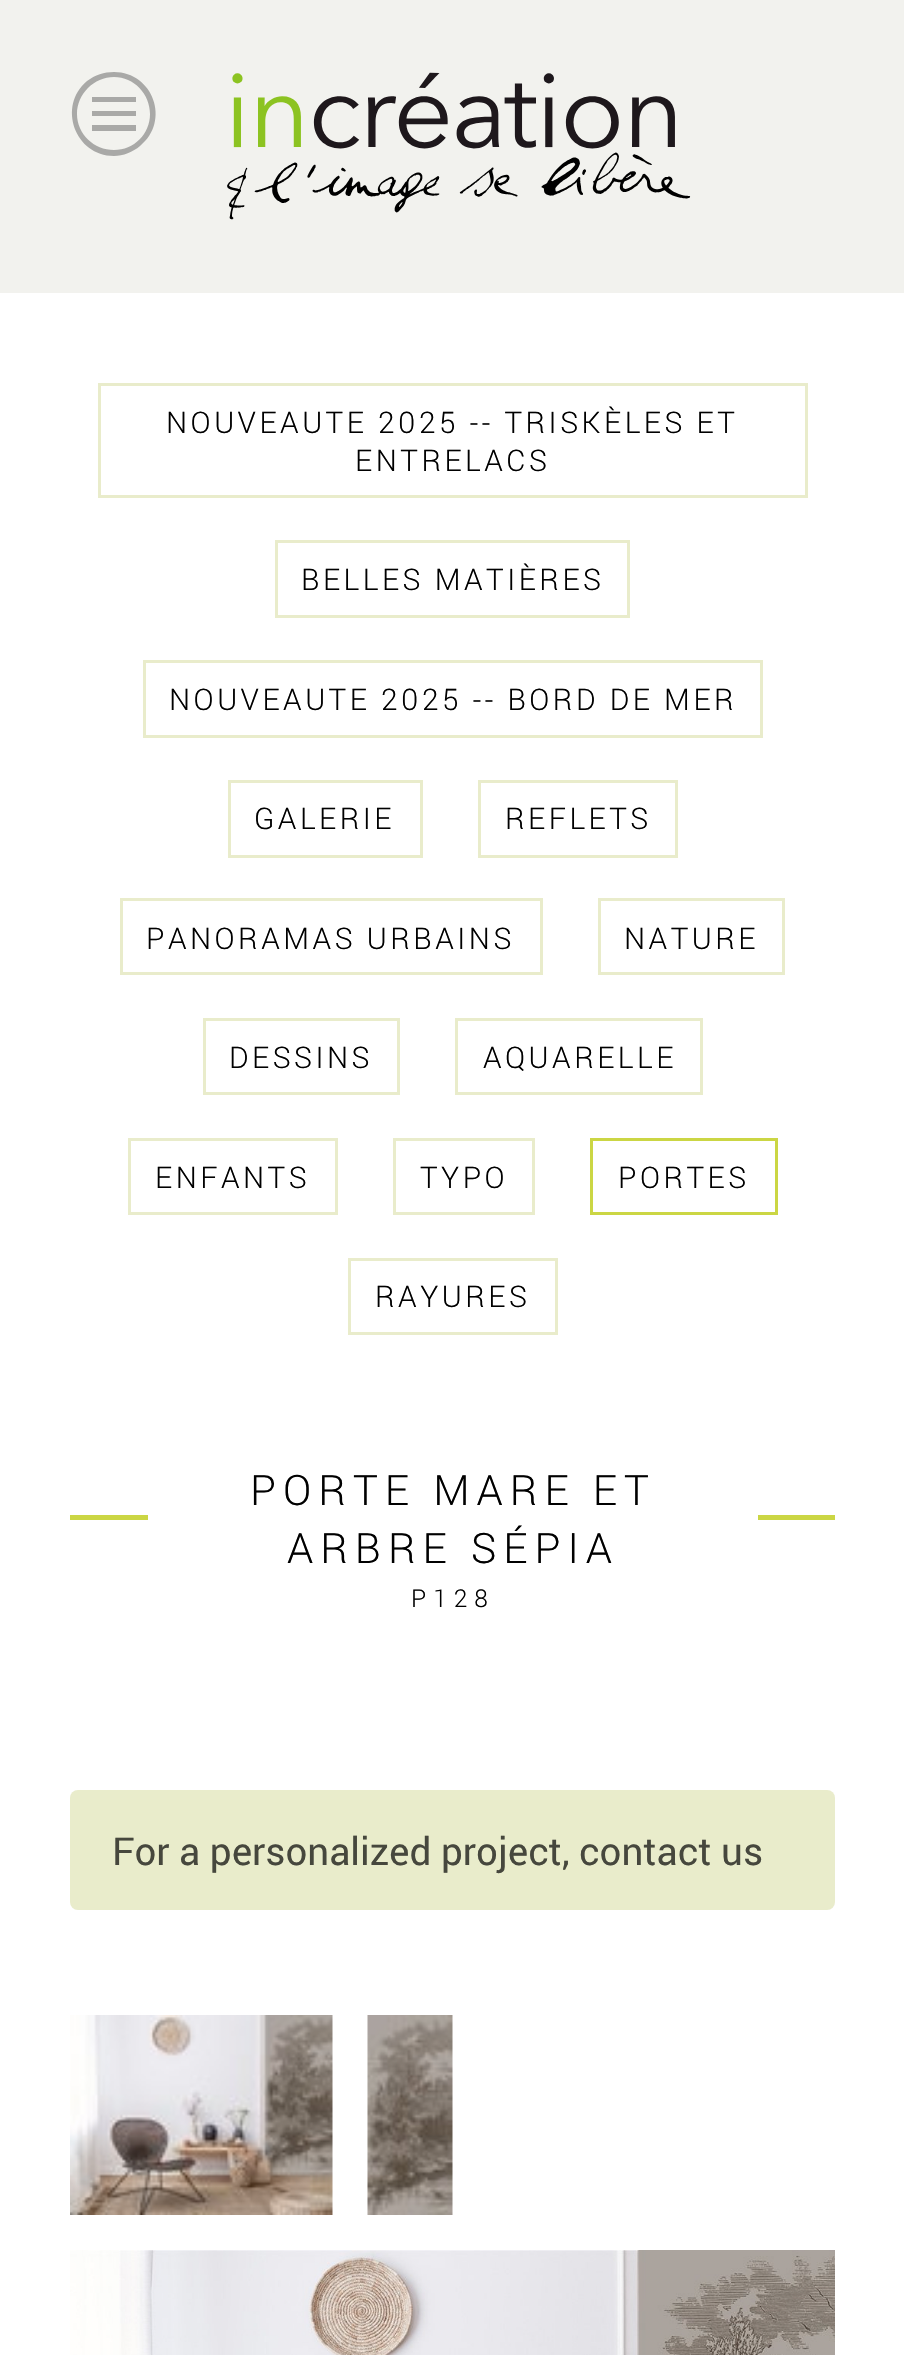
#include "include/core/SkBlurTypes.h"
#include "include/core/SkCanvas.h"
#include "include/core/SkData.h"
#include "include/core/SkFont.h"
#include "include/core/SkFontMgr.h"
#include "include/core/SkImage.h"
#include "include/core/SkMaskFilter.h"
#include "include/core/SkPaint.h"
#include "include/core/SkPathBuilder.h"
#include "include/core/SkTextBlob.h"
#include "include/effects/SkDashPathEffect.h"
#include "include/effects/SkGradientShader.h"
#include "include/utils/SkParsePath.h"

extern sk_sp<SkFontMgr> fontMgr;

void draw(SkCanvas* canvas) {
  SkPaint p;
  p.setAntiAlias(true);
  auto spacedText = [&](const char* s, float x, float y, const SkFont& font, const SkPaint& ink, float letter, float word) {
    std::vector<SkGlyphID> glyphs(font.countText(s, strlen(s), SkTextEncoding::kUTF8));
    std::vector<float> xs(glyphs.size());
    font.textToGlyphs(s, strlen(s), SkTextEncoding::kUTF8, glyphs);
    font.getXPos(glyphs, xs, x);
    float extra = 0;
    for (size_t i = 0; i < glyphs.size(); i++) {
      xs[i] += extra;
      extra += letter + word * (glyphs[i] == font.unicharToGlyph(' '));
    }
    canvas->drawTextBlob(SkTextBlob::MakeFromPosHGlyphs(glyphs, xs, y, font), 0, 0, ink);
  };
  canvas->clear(SK_ColorWHITE);
  p.setColor(SkColorSetRGB(242, 242, 238));
  canvas->drawRect(SkRect::MakeLTRB(0, 0, 904, 293), p);
  p.setColor(SkColorSetRGB(169, 169, 167));
  canvas->drawPath(SkPathBuilder().moveTo(114, 156).cubicTo(75, 156, 57, 106, 87, 81).cubicTo(95, 75, 104, 72, 114, 72).cubicTo(153, 72, 171, 121, 140, 146).cubicTo(133, 152, 123, 156, 114, 156).close().moveTo(114, 77).cubicTo(94, 77, 77, 94, 77, 114).cubicTo(77, 134, 94, 150, 114, 150).cubicTo(134, 150, 150, 134, 150, 114).cubicTo(150, 94, 134, 77, 114, 77).close().detach(), p);
  canvas->drawRect(SkRect::MakeLTRB(92, 97, 136, 102), p);
  canvas->drawRect(SkRect::MakeLTRB(92, 111, 136, 116), p);
  canvas->drawRect(SkRect::MakeLTRB(92, 125, 136, 131), p);
  canvas->drawImageRect(SkImages::DeferredFromEncodedData(SkData::MakeFromFileName("images/1.png")), SkRect::MakeLTRB(227, 72, 691, 220), SkSamplingOptions());
  p.setStyle(SkPaint::kStroke_Style);
  p.setStrokeWidth(3);
  p.setColor(SkColorSetRGB(233, 236, 203));
  canvas->drawRect(SkRect::MakeLTRB(99.5f, 384.5f, 806.5f, 496.5f), p);
  canvas->drawRect(SkRect::MakeLTRB(276.5f, 541.5f, 628.5f, 616.5f), p);
  canvas->drawRect(SkRect::MakeLTRB(144.5f, 661.5f, 761.5f, 736.5f), p);
  canvas->drawRect(SkRect::MakeLTRB(229.5f, 781.5f, 421.5f, 856.5f), p);
  canvas->drawRect(SkRect::MakeLTRB(479.5f, 781.5f, 676.5f, 856.5f), p);
  canvas->drawRect(SkRect::MakeLTRB(121.5f, 899.5f, 541.5f, 973.5f), p);
  canvas->drawRect(SkRect::MakeLTRB(599.5f, 899.5f, 783.5f, 973.5f), p);
  canvas->drawRect(SkRect::MakeLTRB(204.5f, 1019.5f, 398.5f, 1093.5f), p);
  canvas->drawRect(SkRect::MakeLTRB(456.5f, 1019.5f, 701.5f, 1093.5f), p);
  canvas->drawRect(SkRect::MakeLTRB(129.5f, 1139.5f, 336.5f, 1213.5f), p);
  canvas->drawRect(SkRect::MakeLTRB(394.5f, 1139.5f, 533.5f, 1213.5f), p);
  p.setColor(SkColorSetRGB(203, 214, 68));
  canvas->drawRect(SkRect::MakeLTRB(591.5f, 1139.5f, 776.5f, 1213.5f), p);
  p.setColor(SkColorSetRGB(233, 236, 203));
  canvas->drawRect(SkRect::MakeLTRB(349.5f, 1259.5f, 556.5f, 1333.5f), p);
  p.setStyle(SkPaint::kFill_Style);
  p.setColor(SkColorSetRGB(203, 214, 68));
  canvas->drawRect(SkRect::MakeLTRB(70, 1515, 835, 1520), p);
  p.setColor(SK_ColorWHITE);
  canvas->drawRect(SkRect::MakeLTRB(148, 1515, 758, 1520), p);
  p.setColor(SkColorSetRGB(233, 236, 203));
  canvas->drawRoundRect(SkRect::MakeLTRB(70, 1790, 835, 1910), 8, 8, p);
  canvas->drawImageRect(SkImages::DeferredFromEncodedData(SkData::MakeFromFileName("images/2.png")), SkRect::MakeLTRB(70, 2015, 333, 2215), SkSamplingOptions());
  canvas->drawImageRect(SkImages::DeferredFromEncodedData(SkData::MakeFromFileName("images/3.png")), SkRect::MakeLTRB(367, 2015, 453, 2215), SkSamplingOptions());
  canvas->drawImageRect(SkImages::DeferredFromEncodedData(SkData::MakeFromFileName("images/4.png")), SkRect::MakeLTRB(70, 2250, 835, 2355), SkSamplingOptions());
  SkFont font1(fontMgr->matchFamilyStyle("Roboto", SkFontStyle(300, SkFontStyle::kNormal_Width, SkFontStyle::kUpright_Slant)), 29.75f);
  font1.setSubpixel(true);
  p.setColor(SK_ColorBLACK);
  spacedText("NOUVEAUTE 2025 -- TRISKÈLES ET", 166, 433, font1, p, 3.5f, 0);
  spacedText("ENTRELACS", 355, 471, font1, p, 3.5f, 0);
  spacedText("BELLES MATIÈRES", 301, 590, font1, p, 3.5f, 0);
  spacedText("NOUVEAUTE 2025 -- BORD DE MER", 169, 710, font1, p, 3.5f, 0);
  spacedText("GALERIE", 254, 829, font1, p, 3.5f, 0);
  spacedText("REFLETS", 505, 829, font1, p, 3.5f, 0);
  spacedText("PANORAMAS URBAINS", 146, 949, font1, p, 3.5f, 0);
  spacedText("NATURE", 624, 949, font1, p, 3.5f, 0);
  spacedText("DESSINS", 229, 1068, font1, p, 3.5f, 0);
  spacedText("AQUARELLE", 483, 1068, font1, p, 3.5f, 0);
  spacedText("ENFANTS", 155, 1188, font1, p, 3.5f, 0);
  spacedText("TYPO", 420, 1188, font1, p, 3.5f, 0);
  spacedText("PORTES", 618, 1188, font1, p, 3.5f, 0);
  spacedText("RAYURES", 375, 1307, font1, p, 3.5f, 0);
  SkFont font2(fontMgr->matchFamilyStyle("Roboto", SkFontStyle(300, SkFontStyle::kNormal_Width, SkFontStyle::kUpright_Slant)), 42);
  font2.setSubpixel(true);
  spacedText("PORTE MARE ET", 250, 1505, font2, p, 7, 0);
  spacedText("ARBRE SÉPIA", 287, 1563, font2, p, 7, 0);
  SkFont font3(fontMgr->matchFamilyStyle("Roboto", SkFontStyle(300, SkFontStyle::kNormal_Width, SkFontStyle::kUpright_Slant)), 24.5f);
  font3.setSubpixel(true);
  spacedText("P128", 411, 1607, font3, p, 7, 0);
  SkFont font4(fontMgr->matchFamilyStyle("roboto", SkFontStyle::Normal()), 38.5f);
  font4.setSubpixel(true);
  p.setColor(SkColorSetRGB(70, 71, 61));
  canvas->drawString("For a personalized project, contact us", 112, 1865, font4, p);
}
